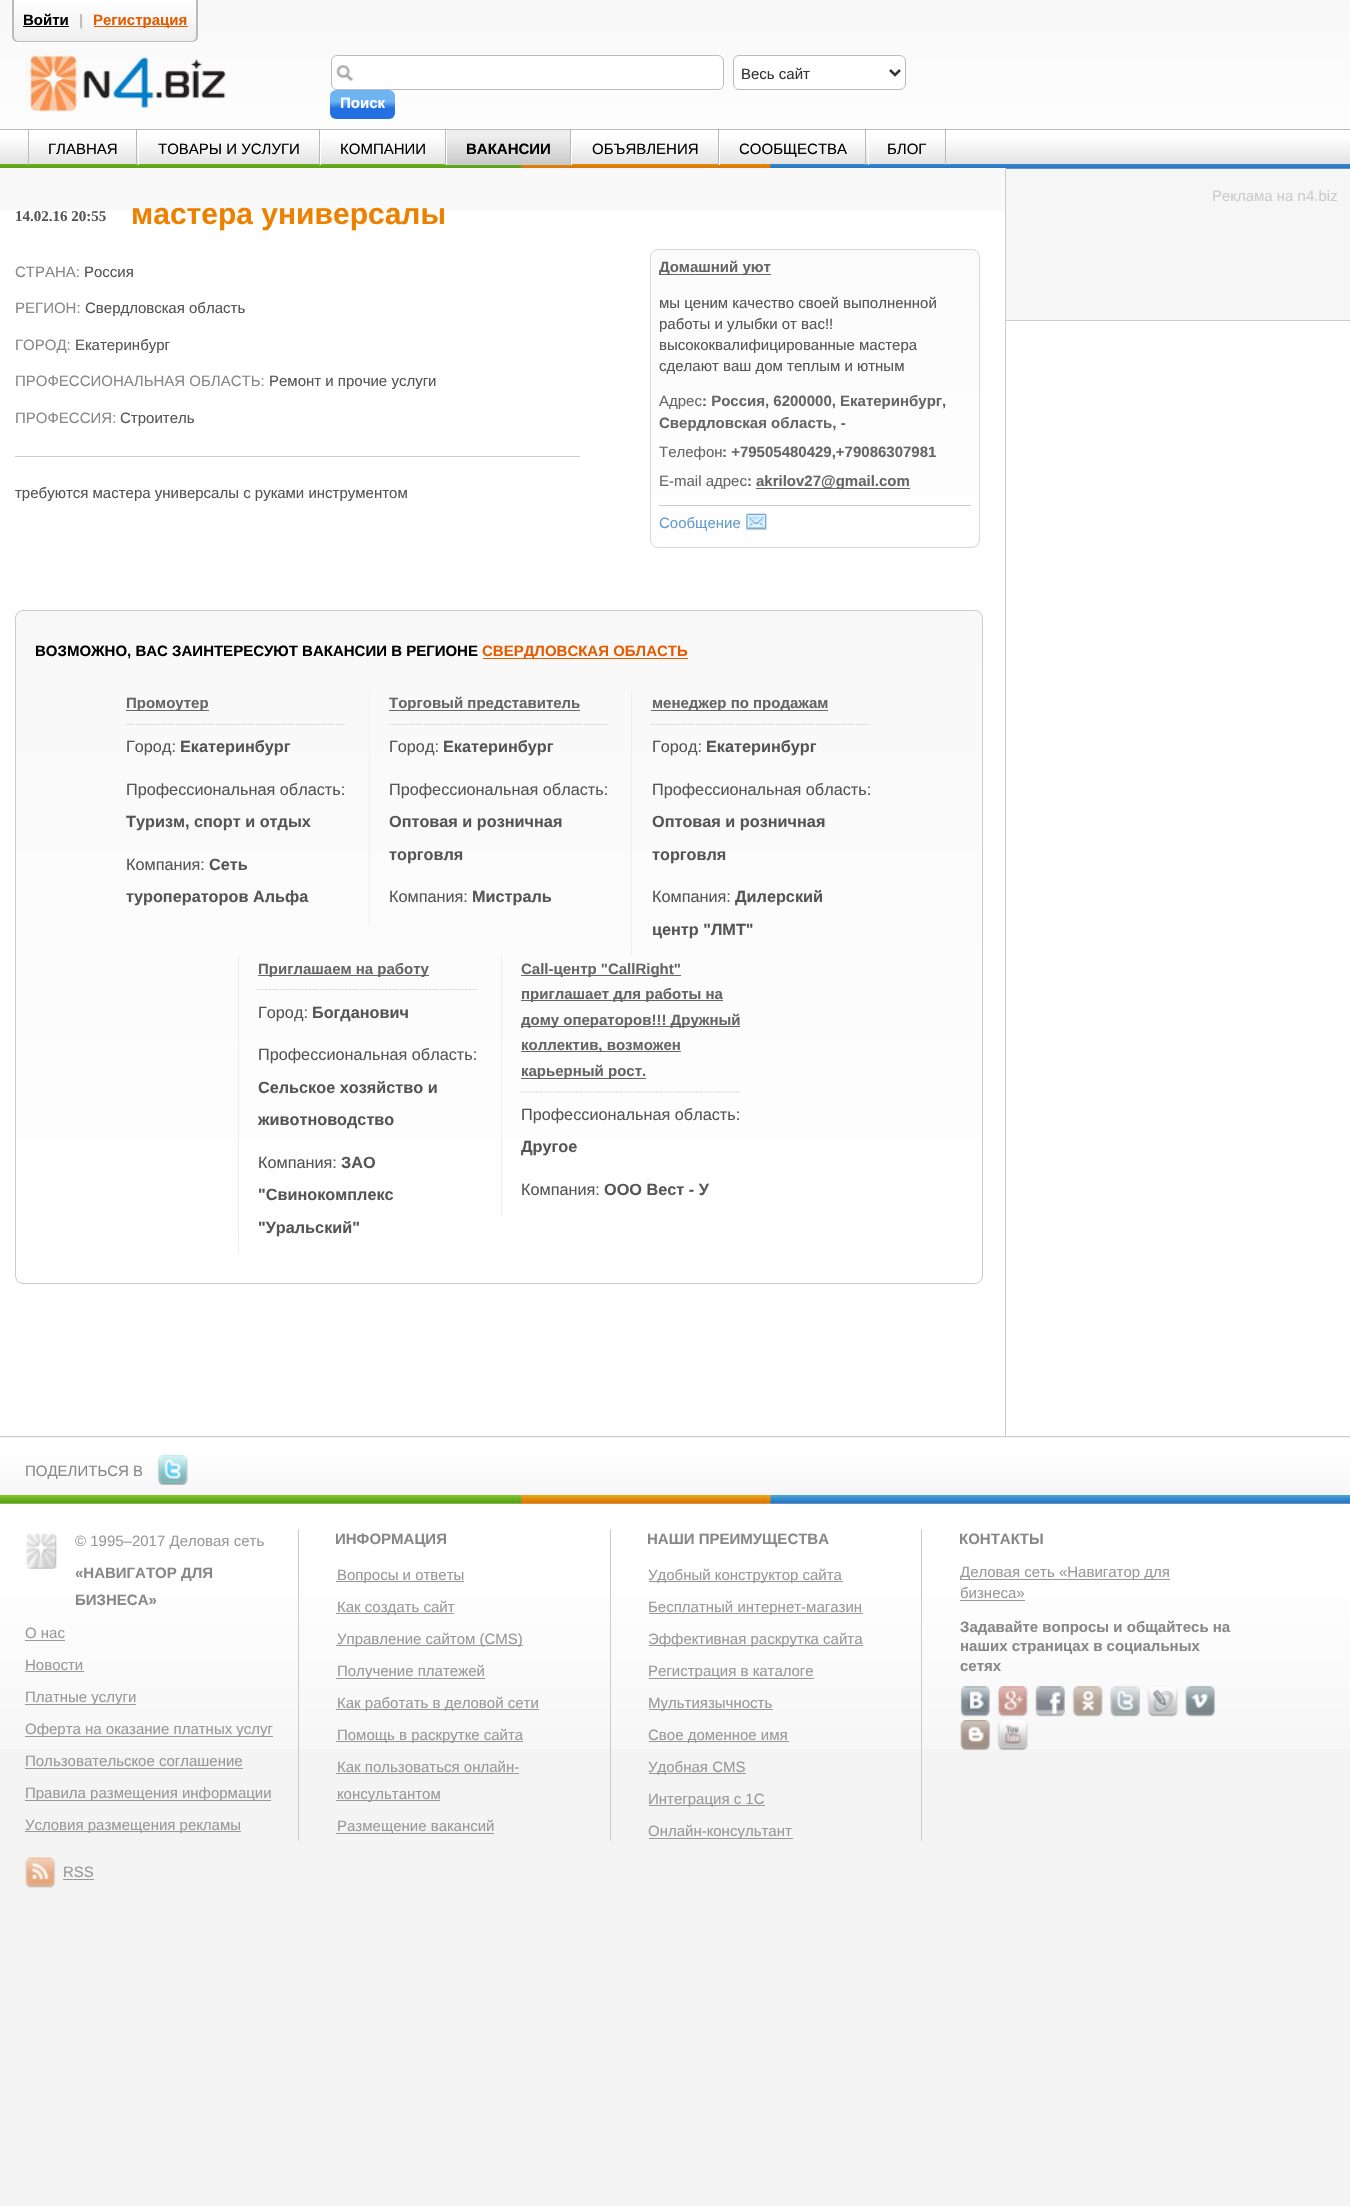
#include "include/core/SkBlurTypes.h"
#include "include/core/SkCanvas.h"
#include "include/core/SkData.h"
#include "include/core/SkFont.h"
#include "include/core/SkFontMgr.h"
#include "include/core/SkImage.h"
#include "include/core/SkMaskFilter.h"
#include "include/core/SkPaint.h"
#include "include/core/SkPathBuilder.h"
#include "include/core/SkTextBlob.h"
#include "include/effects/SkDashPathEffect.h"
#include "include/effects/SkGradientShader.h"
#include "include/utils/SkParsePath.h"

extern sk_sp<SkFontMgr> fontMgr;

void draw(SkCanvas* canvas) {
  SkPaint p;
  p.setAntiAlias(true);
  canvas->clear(SkColorSetRGB(244, 244, 244));
  p.setColor(SK_ColorWHITE);
  canvas->drawRect(SkRect::MakeLTRB(0, 168, 1350, 1436), p);
  canvas->drawImageRect(SkImages::DeferredFromEncodedData(SkData::MakeFromFileName("images/1.png")), SkRect::MakeLTRB(0, 164, 1350, 169), SkSamplingOptions());
  {
    const SkColor colors[] = {SkColorSetRGB(249, 248, 248), SK_ColorWHITE};
    const float stops[] = {0, 1};
    const SkPoint ends[] = {{675, 0}, {675, 164}};
    p.setShader(SkGradientShader::MakeLinear(ends, colors, stops, 2, SkTileMode::kClamp));
    p.setAlpha(255);
  }
  canvas->drawRect(SkRect::MakeLTRB(0, 0, 1350, 129), p);
  canvas->save();
  canvas->clipPath(SkPathBuilder().moveTo(13, 0).lineTo(198, 0).lineTo(198, 37).cubicTo(198, 40.5f, 195.5f, 43, 192, 43).lineTo(19, 43).cubicTo(15.5f, 43, 13, 40.5f, 13, 37).close().detach(), true);
  {
    const SkColor colors[] = {SK_ColorWHITE, SkColorSetRGB(239, 239, 239)};
    const float stops[] = {0, 1};
    const SkPoint ends[] = {{105, 0}, {105, 41}};
    p.setShader(SkGradientShader::MakeLinear(ends, colors, stops, 2, SkTileMode::kClamp));
    p.setAlpha(255);
  }
  canvas->drawRect(SkRect::MakeLTRB(13, 0, 198, 41), p);
  {
    const SkColor colors[] = {SK_ColorWHITE, SkColorSetRGB(239, 239, 239)};
    const float stops[] = {0, 1};
    const SkPoint ends[] = {{105, 41}, {105, 83}};
    p.setShader(SkGradientShader::MakeLinear(ends, colors, stops, 2, SkTileMode::kClamp));
    p.setAlpha(255);
  }
  canvas->drawRect(SkRect::MakeLTRB(13, 41, 198, 43), p);
  canvas->restore();
  p.setShader(nullptr);
  p.setColor(SkColorSetRGB(187, 187, 187));
  canvas->drawPath(SkPathBuilder(SkPathFillType::kEvenOdd).moveTo(12, 0).lineTo(198, 0).lineTo(198, 36).cubicTo(198, 40, 195, 42, 191, 42).lineTo(19, 42).cubicTo(15, 42, 12, 40, 12, 36).close().moveTo(14, 0).lineTo(196, 0).lineTo(196, 36).cubicTo(196, 39, 194, 41, 191, 41).lineTo(19, 41).cubicTo(16, 41, 14, 39, 14, 36).close().detach(), p);
  p.setColor(SK_ColorBLACK);
  canvas->drawRect(SkRect::MakeLTRB(23, 26, 69, 27), p);
  p.setColor(SkColorSetRGB(229, 92, 0));
  canvas->drawRect(SkRect::MakeLTRB(94, 26, 188, 27), p);
  canvas->drawImageRect(SkImages::DeferredFromEncodedData(SkData::MakeFromFileName("images/2.png")), SkRect::MakeLTRB(25, 50, 226, 113), SkSamplingOptions());
  {
    const SkColor colors[] = {SK_ColorWHITE, SkColorSetRGB(228, 228, 228)};
    const float stops[] = {0.2f, 1};
    const SkPoint ends[] = {{675, 130}, {675, 164}};
    p.setShader(SkGradientShader::MakeLinear(ends, colors, stops, 2, SkTileMode::kClamp));
    p.setAlpha(255);
  }
  canvas->drawRect(SkRect::MakeLTRB(0, 130, 1350, 164), p);
  p.setShader(nullptr);
  p.setColor(SkColorSetRGB(187, 187, 187));
  canvas->drawRect(SkRect::MakeLTRB(0, 129, 1350, 130), p);
  canvas->drawRect(SkRect::MakeLTRB(136, 130, 137, 165), p);
  canvas->drawRect(SkRect::MakeLTRB(28, 130, 29, 165), p);
  canvas->drawRect(SkRect::MakeLTRB(319, 130, 320, 165), p);
  p.setColor(SK_ColorWHITE);
  canvas->drawRect(SkRect::MakeLTRB(138, 139, 139, 165), p);
  p.setColor(SkColorSetRGB(187, 187, 187));
  canvas->drawRect(SkRect::MakeLTRB(445, 130, 446, 165), p);
  p.setColor(SK_ColorWHITE);
  canvas->drawRect(SkRect::MakeLTRB(320, 139, 321, 165), p);
  {
    const SkColor colors[] = {SkColorSetRGB(237, 237, 237), SkColorSetRGB(199, 200, 199)};
    const float stops[] = {0.2f, 1};
    const SkPoint ends[] = {{509, 130}, {509, 165}};
    p.setShader(SkGradientShader::MakeLinear(ends, colors, stops, 2, SkTileMode::kClamp));
    p.setAlpha(255);
  }
  canvas->drawRect(SkRect::MakeLTRB(447, 130, 570, 165), p);
  p.setShader(nullptr);
  p.setColor(SkColorSetRGB(187, 187, 187));
  canvas->drawRect(SkRect::MakeLTRB(570, 130, 571, 165), p);
  p.setColor(SK_ColorWHITE);
  canvas->drawRect(SkRect::MakeLTRB(446, 139, 447, 165), p);
  p.setColor(SkColorSetRGB(187, 187, 187));
  canvas->drawRect(SkRect::MakeLTRB(718, 130, 719, 165), p);
  p.setColor(SK_ColorWHITE);
  canvas->drawRect(SkRect::MakeLTRB(571, 139, 572, 165), p);
  p.setColor(SkColorSetRGB(187, 187, 187));
  canvas->drawRect(SkRect::MakeLTRB(865, 130, 866, 165), p);
  p.setColor(SK_ColorWHITE);
  canvas->drawRect(SkRect::MakeLTRB(719, 139, 720, 165), p);
  p.setColor(SkColorSetRGB(187, 187, 187));
  canvas->drawRect(SkRect::MakeLTRB(945, 130, 946, 165), p);
  p.setColor(SK_ColorWHITE);
  canvas->drawRect(SkRect::MakeLTRB(868, 139, 869, 165), p);
  canvas->drawRoundRect(SkRect::MakeLTRB(331, 55, 724, 90), 6, 6, p);
  canvas->drawImageRect(SkImages::DeferredFromEncodedData(SkData::MakeFromFileName("images/3.png")), SkRect::MakeLTRB(336, 65, 354, 82), SkSamplingOptions());
  p.setStyle(SkPaint::kStroke_Style);
  p.setStrokeWidth(1);
  p.setColor(SkColorSetRGB(187, 187, 187));
  canvas->drawRoundRect(SkRect::MakeLTRB(331.5f, 55.5f, 723.5f, 89.5f), 5.5f, 5.5f, p);
  p.setStyle(SkPaint::kFill_Style);
  p.setColor(SK_ColorWHITE);
  canvas->drawRoundRect(SkRect::MakeLTRB(733.5f, 55.5f, 905.5f, 89.5f), 5.5f, 5.5f, p);
  p.setStyle(SkPaint::kStroke_Style);
  p.setColor(SkColorSetRGB(187, 187, 187));
  canvas->drawRoundRect(SkRect::MakeLTRB(733.5f, 55.5f, 905.5f, 89.5f), 5.5f, 5.5f, p);
  p.setStrokeWidth(2.5f);
  p.setColor(SkColorSetRGB(51, 51, 51));
  canvas->drawPath(SkPathBuilder().moveTo(890, 70).lineTo(895, 75).lineTo(900, 70).detach(), p);
  p.setStyle(SkPaint::kFill_Style);
  {
    const SkColor colors[] = {SkColorSetRGB(110, 180, 241), SkColorSetRGB(34, 112, 226)};
    const float stops[] = {0.4f, 0.62f};
    const SkPoint ends[] = {{363, 90}, {363, 119}};
    p.setShader(SkGradientShader::MakeLinear(ends, colors, stops, 2, SkTileMode::kClamp));
    p.setAlpha(255);
  }
  canvas->drawRoundRect(SkRect::MakeLTRB(330, 90, 395, 119), 6, 6, p);
  p.setShader(nullptr);
  p.setColor(SkColorSetRGB(246, 246, 246));
  canvas->drawRect(SkRect::MakeLTRB(1006, 169, 1350, 320), p);
  p.setColor(SkColorSetRGB(204, 204, 204));
  canvas->drawRect(SkRect::MakeLTRB(1006, 320, 1350, 321), p);
  p.setColor(SkColorSetRGB(249, 249, 249));
  canvas->drawRect(SkRect::MakeLTRB(0, 168, 1006, 210), p);
  p.setColor(SkColorSetRGB(204, 204, 204));
  canvas->drawRect(SkRect::MakeLTRB(1005, 169, 1006, 1436), p);
  canvas->drawRect(SkRect::MakeLTRB(15, 456, 580, 457), p);
  canvas->save();
  canvas->clipPath(SkPathBuilder().moveTo(658, 249).lineTo(972, 249).cubicTo(976.5f, 249, 980, 252.5f, 980, 257).lineTo(980, 540).cubicTo(980, 544.5f, 976.5f, 548, 972, 548).lineTo(658, 548).cubicTo(653.5f, 548, 650, 544.5f, 650, 540).lineTo(650, 257).cubicTo(650, 252.5f, 653.5f, 249, 658, 249).close().detach(), true);
  {
    const SkColor colors[] = {SkColorSetRGB(251, 251, 251), SkColorSetRGB(254, 254, 254)};
    const float stops[] = {0, 1};
    const SkPoint ends[] = {{815, 250}, {815, 546}};
    p.setShader(SkGradientShader::MakeLinear(ends, colors, stops, 2, SkTileMode::kClamp));
    p.setAlpha(255);
  }
  canvas->drawRect(SkRect::MakeLTRB(650, 250, 980, 546), p);
  {
    const SkColor colors[] = {SkColorSetRGB(251, 251, 251), SkColorSetRGB(254, 254, 254)};
    const float stops[] = {0, 1};
    const SkPoint ends[] = {{815, 546}, {815, 843}};
    p.setShader(SkGradientShader::MakeLinear(ends, colors, stops, 2, SkTileMode::kClamp));
    p.setAlpha(255);
  }
  canvas->drawRect(SkRect::MakeLTRB(650, 546, 980, 548), p);
  canvas->restore();
  p.setStyle(SkPaint::kStroke_Style);
  p.setStrokeWidth(1);
  p.setShader(nullptr);
  p.setColor(SkColorSetRGB(216, 216, 216));
  canvas->drawRoundRect(SkRect::MakeLTRB(650.5f, 249.5f, 979.5f, 547.5f), 7.5f, 7.5f, p);
  p.setStyle(SkPaint::kFill_Style);
  p.setColor(SkColorSetRGB(102, 102, 102));
  canvas->drawRect(SkRect::MakeLTRB(659, 274, 771, 275), p);
  canvas->drawRect(SkRect::MakeLTRB(756, 488, 910, 489), p);
  p.setColor(SkColorSetRGB(204, 204, 204));
  canvas->drawRect(SkRect::MakeLTRB(659, 505, 971, 506), p);
  canvas->drawImageRect(SkImages::DeferredFromEncodedData(SkData::MakeFromFileName("images/4.png")), SkRect::MakeLTRB(746, 513, 767, 531), SkSamplingOptions());
  canvas->save();
  canvas->clipPath(SkPathBuilder().moveTo(23, 610).lineTo(975, 610).cubicTo(979.5f, 610, 983, 613.5f, 983, 618).lineTo(983, 1276).cubicTo(983, 1280.5f, 979.5f, 1284, 975, 1284).lineTo(23, 1284).cubicTo(18.5f, 1284, 15, 1280.5f, 15, 1276).lineTo(15, 618).cubicTo(15, 613.5f, 18.5f, 610, 23, 610).close().detach(), true);
  {
    const SkColor colors[] = {SkColorSetRGB(249, 248, 248), SK_ColorWHITE};
    const float stops[] = {0, 1};
    const SkPoint ends[] = {{499, 611}, {499, 1283}};
    p.setShader(SkGradientShader::MakeLinear(ends, colors, stops, 2, SkTileMode::kClamp));
    p.setAlpha(255);
  }
  canvas->drawRect(SkRect::MakeLTRB(15, 611, 983, 1283), p);
  canvas->restore();
  p.setStyle(SkPaint::kStroke_Style);
  p.setShader(nullptr);
  p.setColor(SkColorSetRGB(204, 204, 204));
  canvas->drawRoundRect(SkRect::MakeLTRB(15.5f, 610.5f, 982.5f, 1283.5f), 7.5f, 7.5f, p);
  p.setStyle(SkPaint::kFill_Style);
  p.setColor(SkColorSetRGB(229, 92, 0));
  canvas->drawRect(SkRect::MakeLTRB(483, 658, 688, 659), p);
  p.setStyle(SkPaint::kStroke_Style);
  p.setStrokeWidth(1.2f);
  p.setColor(SkColorSetRGB(204, 204, 204));
  p.setPathEffect(SkDashPathEffect::Make({{1.25f, 1.25f}}, 0));
  canvas->drawPath(SkPathBuilder().moveTo(126, 724.5f).lineTo(346, 724.5f).detach(), p);
  p.setPathEffect(nullptr);
  p.setStyle(SkPaint::kFill_Style);
  p.setColor(SkColorSetRGB(102, 102, 102));
  canvas->drawRect(SkRect::MakeLTRB(126, 710, 209, 711), p);
  p.setColor(SkColorSetRGB(238, 238, 238));
  canvas->drawRect(SkRect::MakeLTRB(369, 691, 370, 924), p);
  p.setStyle(SkPaint::kStroke_Style);
  p.setColor(SkColorSetRGB(204, 204, 204));
  p.setPathEffect(SkDashPathEffect::Make({{1.25f, 1.25f}}, 0));
  canvas->drawPath(SkPathBuilder().moveTo(389, 724.5f).lineTo(609, 724.5f).detach(), p);
  p.setPathEffect(nullptr);
  p.setStyle(SkPaint::kFill_Style);
  p.setColor(SkColorSetRGB(102, 102, 102));
  canvas->drawRect(SkRect::MakeLTRB(389, 710, 580, 711), p);
  p.setColor(SkColorSetRGB(238, 238, 238));
  canvas->drawRect(SkRect::MakeLTRB(631, 691, 632, 956), p);
  p.setStyle(SkPaint::kStroke_Style);
  p.setColor(SkColorSetRGB(204, 204, 204));
  p.setPathEffect(SkDashPathEffect::Make({{1.25f, 1.25f}}, 0));
  canvas->drawPath(SkPathBuilder().moveTo(651, 724.5f).lineTo(871, 724.5f).detach(), p);
  p.setPathEffect(nullptr);
  p.setStyle(SkPaint::kFill_Style);
  p.setColor(SkColorSetRGB(102, 102, 102));
  canvas->drawRect(SkRect::MakeLTRB(651, 710, 828, 711), p);
  p.setColor(SkColorSetRGB(238, 238, 238));
  canvas->drawRect(SkRect::MakeLTRB(238, 956, 239, 1254), p);
  p.setStyle(SkPaint::kStroke_Style);
  p.setColor(SkColorSetRGB(204, 204, 204));
  p.setPathEffect(SkDashPathEffect::Make({{1.25f, 1.25f}}, 0));
  canvas->drawPath(SkPathBuilder().moveTo(257.5f, 989.5f).lineTo(477.5f, 989.5f).detach(), p);
  p.setPathEffect(nullptr);
  p.setStyle(SkPaint::kFill_Style);
  p.setColor(SkColorSetRGB(102, 102, 102));
  canvas->drawRect(SkRect::MakeLTRB(258, 975, 429, 976), p);
  p.setColor(SkColorSetRGB(238, 238, 238));
  canvas->drawRect(SkRect::MakeLTRB(501, 956, 502, 1216), p);
  p.setStyle(SkPaint::kStroke_Style);
  p.setColor(SkColorSetRGB(204, 204, 204));
  p.setPathEffect(SkDashPathEffect::Make({{1.25f, 1.25f}}, 0));
  canvas->drawPath(SkPathBuilder().moveTo(521, 1092).lineTo(741, 1092).detach(), p);
  p.setPathEffect(nullptr);
  p.setStyle(SkPaint::kFill_Style);
  p.setColor(SkColorSetRGB(102, 102, 102));
  canvas->drawRect(SkRect::MakeLTRB(521, 975, 681, 976), p);
  canvas->drawRect(SkRect::MakeLTRB(521, 1000, 723, 1001), p);
  canvas->drawRect(SkRect::MakeLTRB(521, 1026, 740, 1027), p);
  canvas->drawRect(SkRect::MakeLTRB(521, 1051, 681, 1052), p);
  canvas->drawRect(SkRect::MakeLTRB(521, 1078, 646, 1079), p);
  {
    const SkColor colors[] = {SK_ColorWHITE, SkColorSetRGB(244, 244, 244)};
    const float stops[] = {0.2f, 1};
    const SkPoint ends[] = {{675, 1438}, {675, 1505}};
    p.setShader(SkGradientShader::MakeLinear(ends, colors, stops, 2, SkTileMode::kClamp));
    p.setAlpha(255);
  }
  canvas->drawRect(SkRect::MakeLTRB(0, 1438, 1350, 1493), p);
  p.setShader(nullptr);
  p.setColor(SkColorSetRGB(204, 204, 204));
  canvas->drawRect(SkRect::MakeLTRB(0, 1436, 1350, 1437), p);
  canvas->drawImageRect(SkImages::DeferredFromEncodedData(SkData::MakeFromFileName("images/5.png")), SkRect::MakeLTRB(157, 1455, 188, 1485), SkSamplingOptions());
  canvas->drawImageRect(SkImages::DeferredFromEncodedData(SkData::MakeFromFileName("images/6.png")), SkRect::MakeLTRB(0, 1495, 1350, 1504), SkSamplingOptions());
  {
    const SkColor colors[] = {SK_ColorWHITE, SkColorSetRGB(244, 244, 244)};
    const float stops[] = {0.2f, 1};
    const SkPoint ends[] = {{675, 1504}, {675, 1804}};
    p.setShader(SkGradientShader::MakeLinear(ends, colors, stops, 2, SkTileMode::kClamp));
    p.setAlpha(255);
  }
  canvas->drawRect(SkRect::MakeLTRB(0, 1504, 1350, 1749), p);
  canvas->drawImageRect(SkImages::DeferredFromEncodedData(SkData::MakeFromFileName("images/7.png")), SkRect::MakeLTRB(26, 1533, 57, 1569), SkSamplingOptions());
  p.setShader(nullptr);
  p.setColor(SkColorSetRGB(204, 204, 204));
  canvas->drawRect(SkRect::MakeLTRB(298, 1529, 299, 1841), p);
  p.setColor(SkColorSetRGB(153, 153, 153));
  canvas->drawRect(SkRect::MakeLTRB(25, 1640, 65, 1641), p);
  canvas->drawRect(SkRect::MakeLTRB(25, 1671, 84, 1672), p);
  canvas->drawRect(SkRect::MakeLTRB(25, 1704, 136, 1705), p);
  canvas->drawRect(SkRect::MakeLTRB(25, 1736, 273, 1737), p);
  canvas->drawRect(SkRect::MakeLTRB(25, 1768, 243, 1769), p);
  canvas->drawRect(SkRect::MakeLTRB(25, 1800, 271, 1801), p);
  canvas->drawRect(SkRect::MakeLTRB(25, 1831, 241, 1832), p);
  canvas->drawImageRect(SkImages::DeferredFromEncodedData(SkData::MakeFromFileName("images/8.png")), SkRect::MakeLTRB(25, 1857, 56, 1888), SkSamplingOptions());
  canvas->drawRect(SkRect::MakeLTRB(63, 1879, 94, 1880), p);
  p.setColor(SkColorSetRGB(204, 204, 204));
  canvas->drawRect(SkRect::MakeLTRB(610, 1529, 611, 1841), p);
  p.setColor(SkColorSetRGB(153, 153, 153));
  canvas->drawRect(SkRect::MakeLTRB(336, 1581, 464, 1582), p);
  canvas->drawRect(SkRect::MakeLTRB(336, 1613, 454, 1614), p);
  canvas->drawRect(SkRect::MakeLTRB(336, 1645, 523, 1646), p);
  canvas->drawRect(SkRect::MakeLTRB(336, 1678, 485, 1679), p);
  canvas->drawRect(SkRect::MakeLTRB(336, 1709, 539, 1710), p);
  canvas->drawRect(SkRect::MakeLTRB(336, 1741, 523, 1742), p);
  canvas->drawRect(SkRect::MakeLTRB(336, 1773, 519, 1774), p);
  canvas->drawRect(SkRect::MakeLTRB(336, 1800, 440, 1801), p);
  canvas->drawRect(SkRect::MakeLTRB(336, 1833, 494, 1834), p);
  p.setColor(SkColorSetRGB(204, 204, 204));
  canvas->drawRect(SkRect::MakeLTRB(921, 1529, 922, 1841), p);
  p.setColor(SkColorSetRGB(153, 153, 153));
  canvas->drawRect(SkRect::MakeLTRB(649, 1581, 843, 1582), p);
  canvas->drawRect(SkRect::MakeLTRB(649, 1613, 863, 1614), p);
  canvas->drawRect(SkRect::MakeLTRB(649, 1645, 863, 1646), p);
  canvas->drawRect(SkRect::MakeLTRB(649, 1678, 814, 1679), p);
  canvas->drawRect(SkRect::MakeLTRB(649, 1709, 773, 1710), p);
  canvas->drawRect(SkRect::MakeLTRB(649, 1741, 789, 1742), p);
  canvas->drawRect(SkRect::MakeLTRB(649, 1773, 746, 1774), p);
  canvas->drawRect(SkRect::MakeLTRB(649, 1805, 765, 1806), p);
  canvas->drawRect(SkRect::MakeLTRB(649, 1838, 793, 1839), p);
  canvas->drawRect(SkRect::MakeLTRB(960, 1579, 1170, 1580), p);
  canvas->drawRect(SkRect::MakeLTRB(960, 1600, 1025, 1601), p);
  canvas->drawImageRect(SkImages::DeferredFromEncodedData(SkData::MakeFromFileName("images/9.png")), SkRect::MakeLTRB(960, 1686, 990, 1717), SkSamplingOptions());
  canvas->drawImageRect(SkImages::DeferredFromEncodedData(SkData::MakeFromFileName("images/10.png")), SkRect::MakeLTRB(997, 1686, 1028, 1717), SkSamplingOptions());
  canvas->drawImageRect(SkImages::DeferredFromEncodedData(SkData::MakeFromFileName("images/11.png")), SkRect::MakeLTRB(1035, 1686, 1065, 1717), SkSamplingOptions());
  canvas->drawImageRect(SkImages::DeferredFromEncodedData(SkData::MakeFromFileName("images/12.png")), SkRect::MakeLTRB(1072, 1686, 1103, 1717), SkSamplingOptions());
  canvas->drawImageRect(SkImages::DeferredFromEncodedData(SkData::MakeFromFileName("images/13.png")), SkRect::MakeLTRB(1110, 1686, 1140, 1717), SkSamplingOptions());
  canvas->drawImageRect(SkImages::DeferredFromEncodedData(SkData::MakeFromFileName("images/14.png")), SkRect::MakeLTRB(1147, 1687, 1178, 1717), SkSamplingOptions());
  canvas->drawImageRect(SkImages::DeferredFromEncodedData(SkData::MakeFromFileName("images/15.png")), SkRect::MakeLTRB(1185, 1686, 1215, 1717), SkSamplingOptions());
  canvas->drawImageRect(SkImages::DeferredFromEncodedData(SkData::MakeFromFileName("images/16.png")), SkRect::MakeLTRB(960, 1720, 990, 1750), SkSamplingOptions());
  canvas->drawImageRect(SkImages::DeferredFromEncodedData(SkData::MakeFromFileName("images/17.png")), SkRect::MakeLTRB(997, 1720, 1028, 1750), SkSamplingOptions());
  SkFont font1(fontMgr->matchFamilyStyle("Liberation Sans", SkFontStyle::Bold()), 15);
  font1.setSubpixel(true);
  p.setColor(SK_ColorBLACK);
  canvas->drawString("Войти", 23, 25, font1, p);
  p.setColor(SkColorSetRGB(187, 187, 187));
  canvas->drawString("|", 79, 25, font1, p);
  p.setColor(SkColorSetRGB(229, 92, 0));
  canvas->drawString("Регистрация", 93, 25, font1, p);
  SkFont font2(fontMgr->matchFamilyStyle("Liberation Sans", SkFontStyle::Normal()), 15);
  font2.setSubpixel(true);
  p.setColor(SK_ColorBLACK);
  canvas->drawString("ГЛАВНАЯ", 48, 154, font2, p);
  canvas->drawString("ТОВАРЫ И УСЛУГИ", 158, 154, font2, p);
  canvas->drawString("КОМПАНИИ", 340, 154, font2, p);
  canvas->drawString("ВАКАНСИИ", 466, 154, font1, p);
  canvas->drawString("ОБЪЯВЛЕНИЯ", 592, 154, font2, p);
  canvas->drawString("СООБЩЕСТВА", 739, 154, font2, p);
  canvas->drawString("БЛОГ", 887, 154, font2, p);
  p.setColor(SkColorSetRGB(51, 51, 51));
  canvas->drawString("Весь сайт", 741, 79, font2, p);
  p.setColor(SK_ColorWHITE);
  canvas->drawString("Поиск", 340, 108, font1, p);
  p.setColor(SkColorSetRGB(204, 204, 204));
  canvas->drawString("Реклама на n4.biz", 1212, 201, font2, p);
  SkFont font3(fontMgr->matchFamilyStyle("Liberation Serif", SkFontStyle::Bold()), 15);
  font3.setSubpixel(true);
  p.setColor(SkColorSetRGB(85, 85, 85));
  canvas->drawString("14.02.16 20:55", 15, 221, font3, p);
  SkFont font4(fontMgr->matchFamilyStyle("Liberation Sans", SkFontStyle::Bold()), 30);
  font4.setSubpixel(true);
  p.setColor(SkColorSetRGB(238, 128, 0));
  canvas->drawString("мастера универсалы", 131, 224, font4, p);
  p.setColor(SkColorSetRGB(136, 136, 136));
  canvas->drawString("СТРАНА:", 15, 277, font2, p);
  p.setColor(SkColorSetRGB(85, 85, 85));
  canvas->drawString("Россия", 84, 277, font2, p);
  p.setColor(SkColorSetRGB(136, 136, 136));
  canvas->drawString("РЕГИОН:", 15, 313, font2, p);
  p.setColor(SkColorSetRGB(85, 85, 85));
  canvas->drawString("Свердловская область", 85, 313, font2, p);
  p.setColor(SkColorSetRGB(136, 136, 136));
  canvas->drawString("ГОРОД:", 15, 350, font2, p);
  p.setColor(SkColorSetRGB(85, 85, 85));
  canvas->drawString("Екатеринбург", 75, 350, font2, p);
  p.setColor(SkColorSetRGB(136, 136, 136));
  canvas->drawString("ПРОФЕССИОНАЛЬНАЯ ОБЛАСТЬ:", 15, 386, font2, p);
  p.setColor(SkColorSetRGB(85, 85, 85));
  canvas->drawString("Ремонт и прочие услуги", 269, 386, font2, p);
  p.setColor(SkColorSetRGB(136, 136, 136));
  canvas->drawString("ПРОФЕССИЯ:", 15, 423, font2, p);
  p.setColor(SkColorSetRGB(85, 85, 85));
  canvas->drawString("Строитель", 120, 423, font2, p);
  p.setColor(SkColorSetRGB(102, 102, 102));
  canvas->drawString("Домашний уют", 659, 272, font1, p);
  p.setColor(SkColorSetRGB(85, 85, 85));
  canvas->drawString("мы ценим качество своей выполненной", 659, 308, font2, p);
  canvas->drawString("работы и улыбки от вас!!", 659, 329, font2, p);
  canvas->drawString("высококвалифицированные мастера", 659, 350, font2, p);
  canvas->drawString("сделают ваш дом теплым и ютным", 659, 371, font2, p);
  p.setColor(SkColorSetRGB(102, 102, 102));
  canvas->drawString("Адрес", 659, 406, font2, p);
  canvas->drawString(": Россия, 6200000, Екатеринбург,", 702, 406, font1, p);
  canvas->drawString("Свердловская область, -", 659, 428, font1, p);
  canvas->drawString("Телефон", 659, 457, font2, p);
  canvas->drawString(": +79505480429,+79086307981", 722, 457, font1, p);
  canvas->drawString("E-mail адрес", 659, 486, font2, p);
  canvas->drawString(":", 747, 486, font1, p);
  canvas->drawString("akrilov27@gmail.com", 756, 486, font1, p);
  p.setColor(SkColorSetRGB(99, 158, 202));
  canvas->drawString("Сообщение", 659, 528, font2, p);
  p.setColor(SkColorSetRGB(85, 85, 85));
  canvas->drawString("требуются мастера универсалы с руками инструментом", 15, 498, font2, p);
  p.setColor(SK_ColorBLACK);
  canvas->drawString("ВОЗМОЖНО, ВАС ЗАИНТЕРЕСУЮТ ВАКАНСИИ В РЕГИОНЕ", 35, 656, font1, p);
  p.setColor(SkColorSetRGB(229, 92, 0));
  canvas->drawString("СВЕРДЛОВСКАЯ ОБЛАСТЬ", 482, 656, font1, p);
  p.setColor(SkColorSetRGB(102, 102, 102));
  canvas->drawString("Промоутер", 126, 708, font1, p);
  SkFont font5(fontMgr->matchFamilyStyle("Liberation Sans", SkFontStyle::Normal()), 16.25f);
  font5.setSubpixel(true);
  p.setColor(SkColorSetRGB(85, 85, 85));
  canvas->drawString("Город:", 126, 752, font5, p);
  SkFont font6(fontMgr->matchFamilyStyle("Liberation Sans", SkFontStyle::Bold()), 16.25f);
  font6.setSubpixel(true);
  canvas->drawString("Екатеринбург", 180, 752, font6, p);
  canvas->drawString("Профессиональная область:", 126, 795, font5, p);
  canvas->drawString("Туризм, спорт и отдых", 126, 827, font6, p);
  canvas->drawString("Компания:", 126, 870, font5, p);
  canvas->drawString("Сеть", 209, 870, font6, p);
  canvas->drawString("туроператоров Альфа", 126, 902, font6, p);
  p.setColor(SkColorSetRGB(102, 102, 102));
  canvas->drawString("Торговый представитель", 389, 708, font1, p);
  p.setColor(SkColorSetRGB(85, 85, 85));
  canvas->drawString("Город:", 389, 752, font5, p);
  canvas->drawString("Екатеринбург", 443, 752, font6, p);
  canvas->drawString("Профессиональная область:", 389, 795, font5, p);
  canvas->drawString("Оптовая и розничная", 389, 827, font6, p);
  canvas->drawString("торговля", 389, 860, font6, p);
  canvas->drawString("Компания:", 389, 902, font5, p);
  canvas->drawString("Мистраль", 472, 902, font6, p);
  p.setColor(SkColorSetRGB(102, 102, 102));
  canvas->drawString("менеджер по продажам", 652, 708, font1, p);
  p.setColor(SkColorSetRGB(85, 85, 85));
  canvas->drawString("Город:", 652, 752, font5, p);
  canvas->drawString("Екатеринбург", 706, 752, font6, p);
  canvas->drawString("Профессиональная область:", 652, 795, font5, p);
  canvas->drawString("Оптовая и розничная", 652, 827, font6, p);
  canvas->drawString("торговля", 652, 860, font6, p);
  canvas->drawString("Компания:", 652, 902, font5, p);
  canvas->drawString("Дилерский", 735, 902, font6, p);
  canvas->drawString("центр \"ЛМТ\"", 652, 935, font6, p);
  p.setColor(SkColorSetRGB(102, 102, 102));
  canvas->drawString("Приглашаем на работу", 258, 974, font1, p);
  p.setColor(SkColorSetRGB(85, 85, 85));
  canvas->drawString("Город:", 258, 1018, font5, p);
  canvas->drawString("Богданович", 312, 1018, font6, p);
  canvas->drawString("Профессиональная область:", 258, 1060, font5, p);
  canvas->drawString("Сельское хозяйство и", 258, 1093, font6, p);
  canvas->drawString("животноводство", 258, 1125, font6, p);
  canvas->drawString("Компания:", 258, 1168, font5, p);
  canvas->drawString("ЗАО", 341, 1168, font6, p);
  canvas->drawString("\"Свинокомплекс", 258, 1200, font6, p);
  canvas->drawString("\"Уральский\"", 258, 1233, font6, p);
  p.setColor(SkColorSetRGB(102, 102, 102));
  canvas->drawString("Call-центр \"СallRight\"", 521, 974, font1, p);
  canvas->drawString("приглашает для работы на", 521, 999, font1, p);
  canvas->drawString("дому операторов!!! Дружный", 521, 1025, font1, p);
  canvas->drawString("коллектив, возможен", 521, 1050, font1, p);
  canvas->drawString("карьерный рост.", 521, 1076, font1, p);
  p.setColor(SkColorSetRGB(85, 85, 85));
  canvas->drawString("Профессиональная область:", 521, 1120, font5, p);
  canvas->drawString("Другое", 521, 1152, font6, p);
  canvas->drawString("Компания:", 521, 1195, font5, p);
  canvas->drawString("ООО Вест - У", 604, 1195, font6, p);
  p.setColor(SkColorSetRGB(136, 136, 136));
  canvas->drawString("ПОДЕЛИТЬСЯ В", 25, 1476, font2, p);
  p.setColor(SkColorSetRGB(153, 153, 153));
  canvas->drawString("© 1995–2017 Деловая сеть", 75, 1546, font2, p);
  p.setColor(SkColorSetRGB(136, 136, 136));
  canvas->drawString("«НАВИГАТОР ДЛЯ", 75, 1578, font1, p);
  canvas->drawString("БИЗНЕСА»", 75, 1605, font1, p);
  p.setColor(SkColorSetRGB(153, 153, 153));
  canvas->drawString("О нас", 25, 1638, font2, p);
  canvas->drawString("Новости", 25, 1670, font2, p);
  canvas->drawString("Платные услуги", 25, 1702, font2, p);
  canvas->drawString("Оферта на оказание платных услуг", 25, 1734, font2, p);
  canvas->drawString("Пользовательское соглашение", 25, 1766, font2, p);
  canvas->drawString("Правила размещения информации", 25, 1798, font2, p);
  canvas->drawString("Условия размещения рекламы", 25, 1830, font2, p);
  canvas->drawString("RSS", 63, 1877, font2, p);
  p.setColor(SkColorSetRGB(136, 136, 136));
  canvas->drawString("ИНФОРМАЦИЯ", 335, 1544, font1, p);
  p.setColor(SkColorSetRGB(153, 153, 153));
  canvas->drawString("Вопросы и ответы", 337, 1580, font2, p);
  canvas->drawString("Как создать сайт", 337, 1612, font2, p);
  canvas->drawString("Управление сайтом (CMS)", 337, 1644, font2, p);
  canvas->drawString("Получение платежей", 337, 1676, font2, p);
  canvas->drawString("Как работать в деловой сети", 337, 1708, font2, p);
  canvas->drawString("Помощь в раскрутке сайта", 337, 1740, font2, p);
  canvas->drawString("Как пользоваться онлайн-", 337, 1772, font2, p);
  canvas->drawString("консультантом", 337, 1799, font2, p);
  canvas->drawString("Размещение вакансий", 337, 1831, font2, p);
  p.setColor(SkColorSetRGB(136, 136, 136));
  canvas->drawString("НАШИ ПРЕИМУЩЕСТВА", 647, 1544, font1, p);
  p.setColor(SkColorSetRGB(153, 153, 153));
  canvas->drawString("Удобный конструктор сайта", 648, 1580, font2, p);
  canvas->drawString("Бесплатный интернет-магазин", 648, 1612, font2, p);
  canvas->drawString("Эффективная раскрутка сайта", 648, 1644, font2, p);
  canvas->drawString("Регистрация в каталоге", 648, 1676, font2, p);
  canvas->drawString("Мультиязычность", 648, 1708, font2, p);
  canvas->drawString("Свое доменное имя", 648, 1740, font2, p);
  canvas->drawString("Удобная CMS", 648, 1772, font2, p);
  canvas->drawString("Интеграция с 1С", 648, 1804, font2, p);
  canvas->drawString("Онлайн-консультант", 648, 1836, font2, p);
  p.setColor(SkColorSetRGB(136, 136, 136));
  canvas->drawString("КОНТАКТЫ", 959, 1544, font1, p);
  p.setColor(SkColorSetRGB(153, 153, 153));
  canvas->drawString("Деловая сеть «Навигатор для", 960, 1577, font2, p);
  canvas->drawString("бизнеса»", 960, 1598, font2, p);
  p.setColor(SkColorSetRGB(136, 136, 136));
  canvas->drawString("Задавайте вопросы и общайтесь на", 960, 1632, font1, p);
  canvas->drawString("наших страницах в социальных", 960, 1651, font1, p);
  canvas->drawString("сетях", 960, 1671, font1, p);
}
